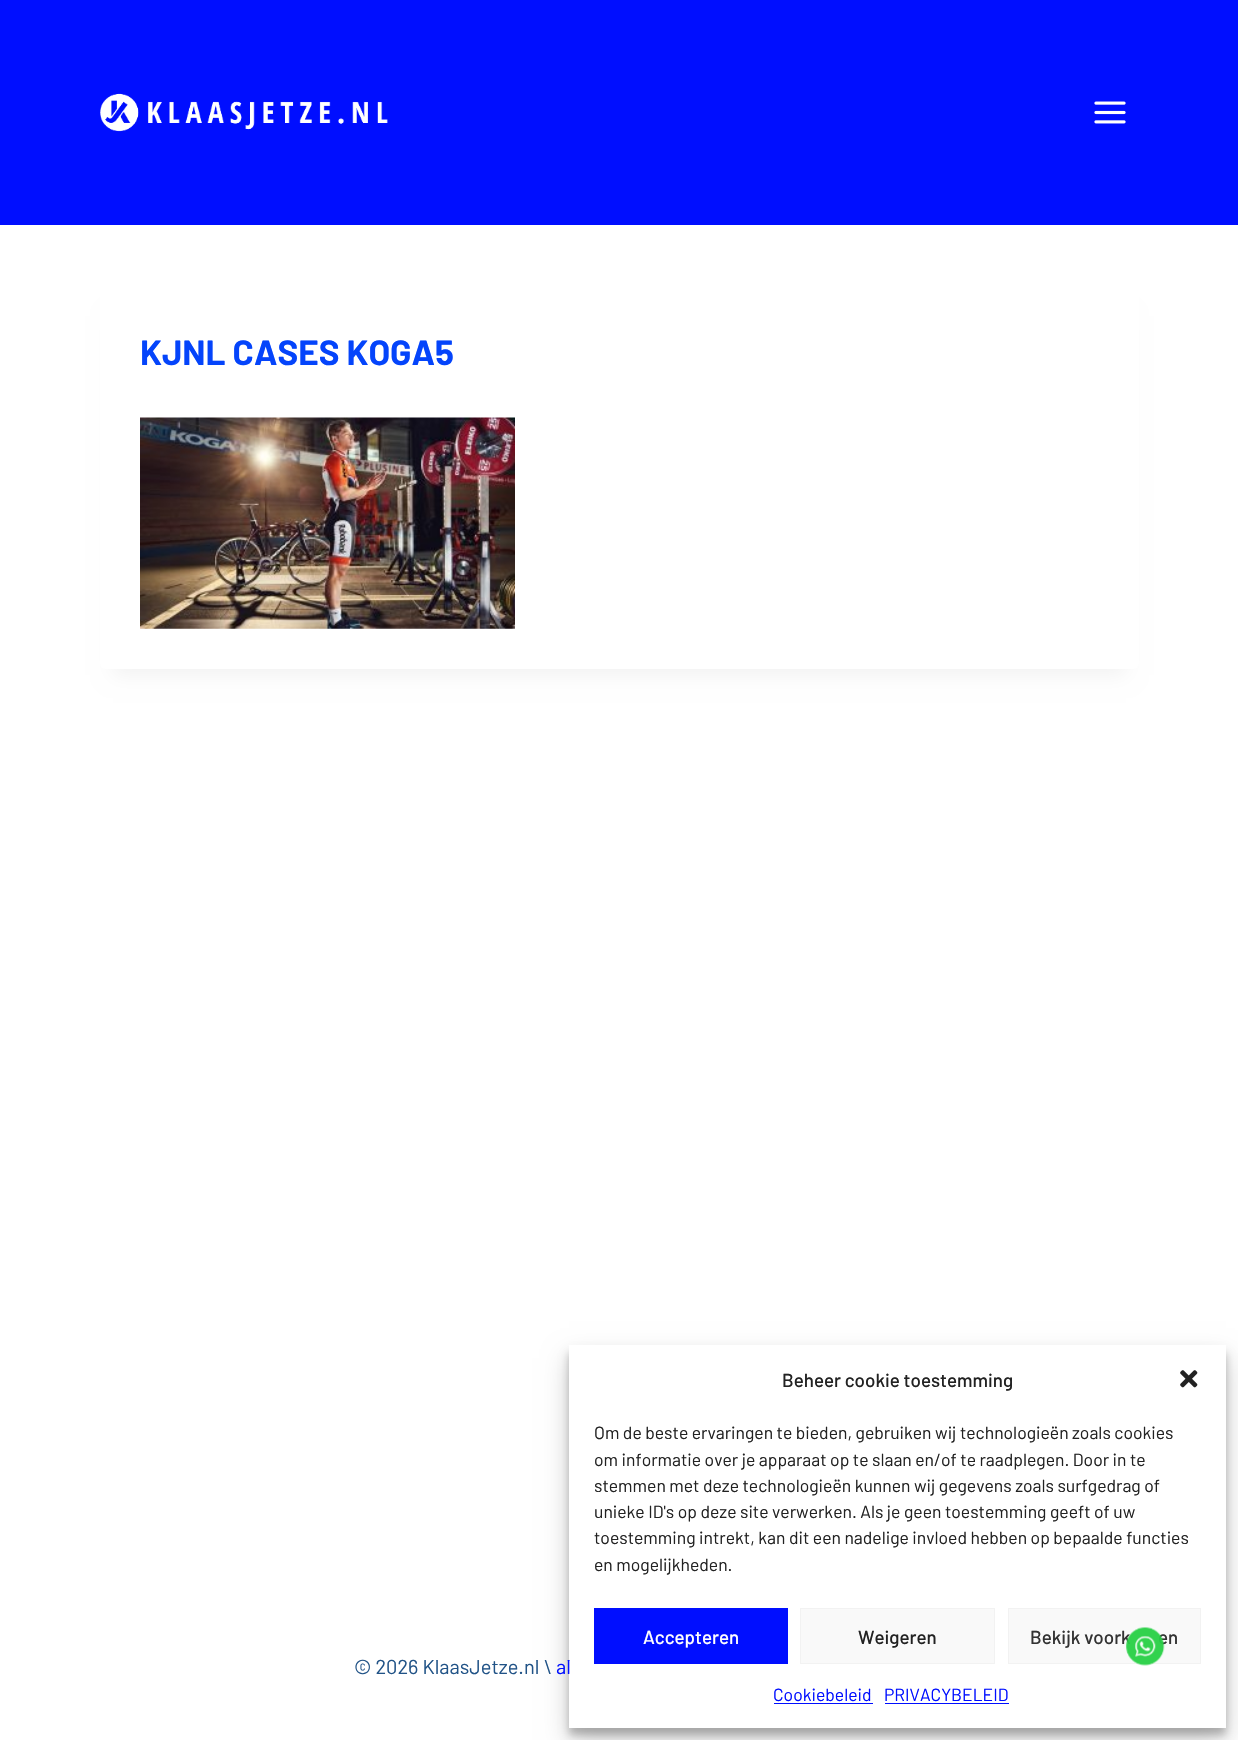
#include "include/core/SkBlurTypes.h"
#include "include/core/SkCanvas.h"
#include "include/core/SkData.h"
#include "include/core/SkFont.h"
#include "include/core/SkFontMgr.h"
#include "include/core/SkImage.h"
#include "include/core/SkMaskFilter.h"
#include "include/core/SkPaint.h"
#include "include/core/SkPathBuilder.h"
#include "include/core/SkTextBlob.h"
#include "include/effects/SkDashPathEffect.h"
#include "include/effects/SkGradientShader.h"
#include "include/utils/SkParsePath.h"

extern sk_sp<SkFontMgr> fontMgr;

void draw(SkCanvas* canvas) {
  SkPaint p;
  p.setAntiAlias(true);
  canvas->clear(SK_ColorWHITE);
  p.setColor(SkColorSetRGB(0, 14, 255));
  canvas->drawRect(SkRect::MakeLTRB(0, 0, 1238, 225), p);
  canvas->drawImageRect(SkImages::DeferredFromEncodedData(SkData::MakeFromFileName("images/1.png")), SkRect::MakeLTRB(100, 93, 388, 132), SkSamplingOptions());
  canvas->drawImageRect(SkImages::DeferredFromEncodedData(SkData::MakeFromFileName("images/2.png")), SkRect::MakeLTRB(1094, 101, 1126, 124), SkSamplingOptions());
  p.setColor(SkColorSetARGB(13, 0, 0, 0));
  p.setMaskFilter(SkMaskFilter::MakeBlur(kNormal_SkBlurStyle, 9.5f));
  canvas->drawRect(SkRect::MakeLTRB(113, 316, 1126, 675), p);
  p.setMaskFilter(nullptr);
  p.setColor(SK_ColorWHITE);
  canvas->drawRoundRect(SkRect::MakeLTRB(100, 285, 1139, 669), 5, 5, p);
  canvas->drawImageRect(SkImages::DeferredFromEncodedData(SkData::MakeFromFileName("images/3.png")), SkRect::MakeLTRB(140, 417, 515, 629), SkSamplingOptions());
  p.setColor(SkColorSetARGB(59, 0, 0, 0));
  p.setMaskFilter(SkMaskFilter::MakeBlur(kNormal_SkBlurStyle, 4));
  canvas->drawRect(SkRect::MakeLTRB(569, 1353, 1226, 1735), p);
  p.setMaskFilter(nullptr);
  p.setColor(SkColorSetARGB(48, 0, 0, 0));
  p.setMaskFilter(SkMaskFilter::MakeBlur(kNormal_SkBlurStyle, 12.5f));
  canvas->drawRect(SkRect::MakeLTRB(569, 1358, 1226, 1740), p);
  p.setMaskFilter(nullptr);
  p.setColor(SK_ColorWHITE);
  canvas->drawRect(SkRect::MakeLTRB(569, 1345, 1226, 1728), p);
  canvas->drawImageRect(SkImages::DeferredFromEncodedData(SkData::MakeFromFileName("images/4.png")), SkRect::MakeLTRB(1180, 1370, 1198, 1388), SkSamplingOptions());
  p.setColor(SkColorSetRGB(0, 14, 255));
  canvas->drawRect(SkRect::MakeLTRB(594, 1608, 788, 1664), p);
  p.setColor(SkColorSetRGB(249, 249, 249));
  canvas->drawRect(SkRect::MakeLTRB(800.5f, 1608.5f, 994.5f, 1663.5f), p);
  p.setStyle(SkPaint::kStroke_Style);
  p.setStrokeWidth(1);
  p.setColor(SkColorSetRGB(242, 242, 242));
  canvas->drawRect(SkRect::MakeLTRB(800.5f, 1608.5f, 994.5f, 1663.5f), p);
  p.setStyle(SkPaint::kFill_Style);
  p.setColor(SkColorSetRGB(249, 249, 249));
  canvas->drawRect(SkRect::MakeLTRB(1008.5f, 1608.5f, 1200.5f, 1663.5f), p);
  p.setStyle(SkPaint::kStroke_Style);
  p.setColor(SkColorSetRGB(242, 242, 242));
  canvas->drawRect(SkRect::MakeLTRB(1008.5f, 1608.5f, 1200.5f, 1663.5f), p);
  p.setStyle(SkPaint::kFill_Style);
  p.setColor(SkColorSetRGB(0, 14, 255));
  canvas->drawRect(SkRect::MakeLTRB(774, 1703, 873, 1704), p);
  canvas->drawRect(SkRect::MakeLTRB(885, 1703, 1009, 1704), p);
  SkFont font1(fontMgr->matchFamilyStyle("Barlow", SkFontStyle::Bold()), 35);
  font1.setSubpixel(true);
  p.setColor(SkColorSetRGB(4, 68, 251));
  canvas->drawString("KJNL CASES KOGA5", 140, 365, font1, p);
  SkFont font2(fontMgr->matchFamilyStyle("Barlow", SkFontStyle::Normal()), 20);
  font2.setSubpixel(true);
  p.setColor(SkColorSetRGB(33, 83, 135));
  canvas->drawString("© 2026 KlaasJetze.nl \\", 354, 1674, font2, p);
  p.setColor(SkColorSetRGB(0, 14, 255));
  canvas->drawString("al", 556, 1674, font2, p);
  SkFont font3(fontMgr->matchFamilyStyle("Barlow", SkFontStyle(500, SkFontStyle::kNormal_Width, SkFontStyle::kUpright_Slant)), 18.75f);
  font3.setSubpixel(true);
  p.setColor(SkColorSetRGB(34, 34, 34));
  canvas->drawString("Beheer cookie toestemming", 782, 1387, font3, p);
  SkFont font4(fontMgr->matchFamilyStyle("Barlow", SkFontStyle::Normal()), 17.5f);
  font4.setSubpixel(true);
  canvas->drawString("Om de beste ervaringen te bieden, gebruiken wij technologieën zoals cookies", 594, 1439, font4, p);
  canvas->drawString("om informatie over je apparaat op te slaan en/of te raadplegen. Door in te", 594, 1466, font4, p);
  canvas->drawString("stemmen met deze technologieën kunnen wij gegevens zoals surfgedrag of", 594, 1492, font4, p);
  canvas->drawString("unieke ID's op deze site verwerken. Als je geen toestemming geeft of uw", 594, 1518, font4, p);
  canvas->drawString("toestemming intrekt, kan dit een nadelige invloed hebben op bepaalde functies", 594, 1544, font4, p);
  canvas->drawString("en mogelijkheden.", 594, 1571, font4, p);
  p.setColor(SK_ColorWHITE);
  canvas->drawString("Accepteren", 643, 1644, font3, p);
  p.setColor(SkColorSetRGB(34, 34, 34));
  canvas->drawString("Weigeren", 858, 1644, font3, p);
  p.setColor(SkColorSetRGB(51, 51, 51));
  canvas->drawString("Bekijk voork", 1030, 1644, font3, p);
  canvas->drawString("en", 1158, 1644, font3, p);
  p.setColor(SkColorSetRGB(0, 14, 255));
  canvas->drawString("Cookiebeleid", 773, 1701, font4, p);
  canvas->drawString("PRIVACYBELEID", 884, 1701, font4, p);
  canvas->drawImageRect(SkImages::DeferredFromEncodedData(SkData::MakeFromFileName("images/5.png")), SkRect::MakeLTRB(1126, 1627, 1165, 1666), SkSamplingOptions());
}
